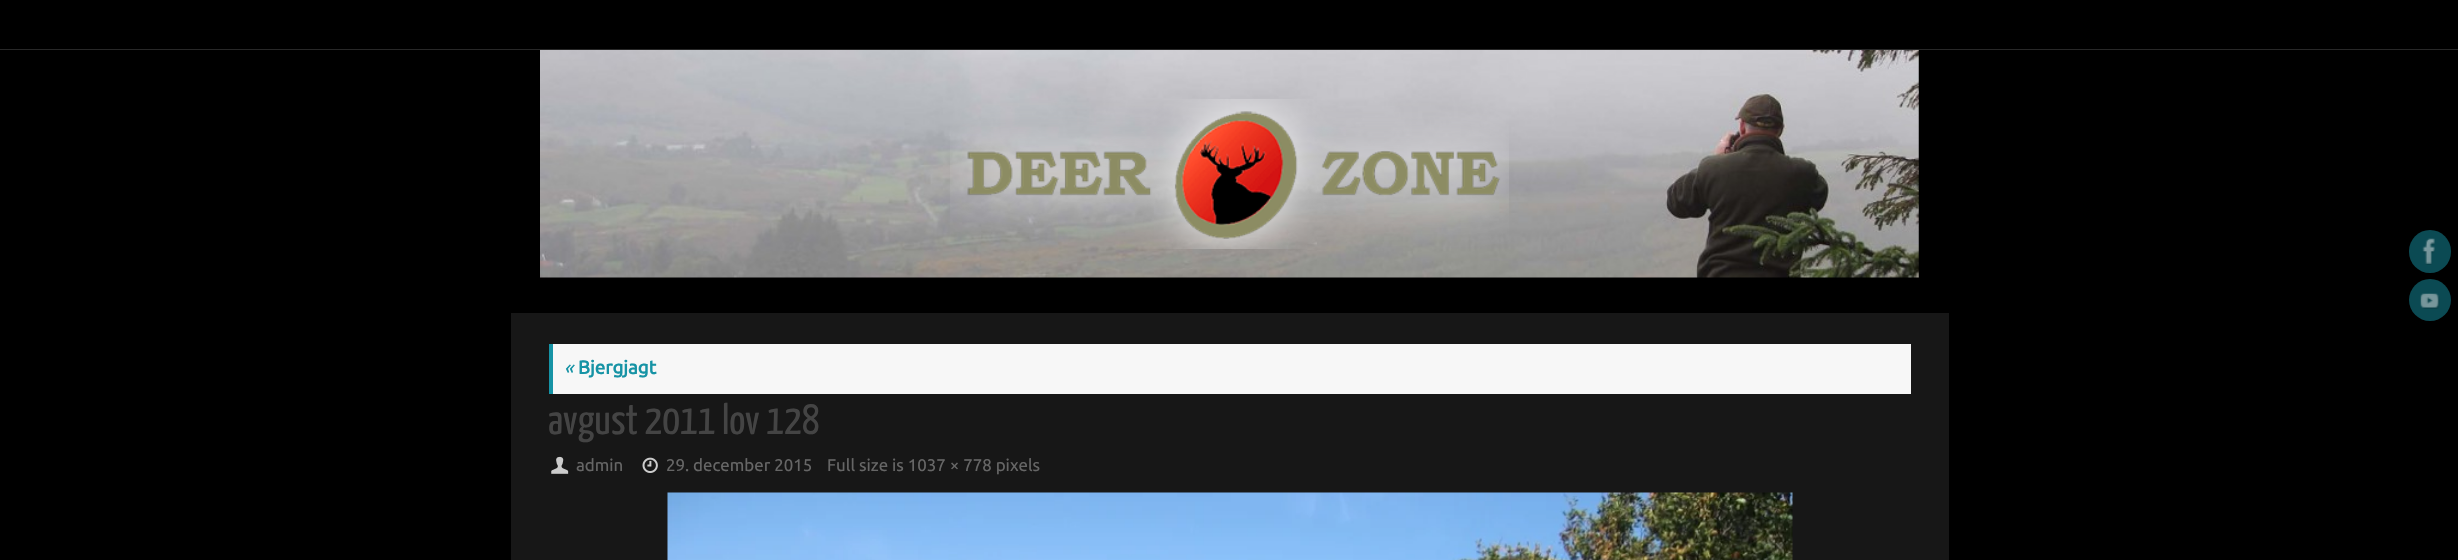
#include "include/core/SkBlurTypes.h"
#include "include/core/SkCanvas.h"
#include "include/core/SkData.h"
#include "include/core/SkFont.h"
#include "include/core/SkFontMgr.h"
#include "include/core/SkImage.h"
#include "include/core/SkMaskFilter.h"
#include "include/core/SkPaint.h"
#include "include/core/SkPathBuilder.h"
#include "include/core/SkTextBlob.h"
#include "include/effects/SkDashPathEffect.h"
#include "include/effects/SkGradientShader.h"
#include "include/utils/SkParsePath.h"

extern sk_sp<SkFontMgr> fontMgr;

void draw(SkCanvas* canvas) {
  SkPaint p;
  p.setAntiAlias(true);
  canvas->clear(SK_ColorBLACK);
  p.setColor(SkColorSetRGB(40, 40, 40));
  canvas->drawRect(SkRect::MakeLTRB(0, 49, 2458, 50), p);
  canvas->drawImageRect(SkImages::DeferredFromEncodedData(SkData::MakeFromFileName("images/1.png")), SkRect::MakeLTRB(540, 50, 1919, 278), SkSamplingOptions());
  canvas->drawImageRect(SkImages::DeferredFromEncodedData(SkData::MakeFromFileName("images/2.png")), SkRect::MakeLTRB(950, 99, 1509, 249), SkSamplingOptions());
  p.setColor(SkColorSetRGB(11, 74, 83));
  canvas->drawRoundRect(SkRect::MakeLTRB(2409, 230, 2451, 273), 21, 21, p);
  canvas->drawImageRect(SkImages::DeferredFromEncodedData(SkData::MakeFromFileName("images/3.png")), SkRect::MakeLTRB(2422, 238, 2435, 265), SkSamplingOptions());
  canvas->drawCircle(2430, 300, 21, p);
  canvas->drawImageRect(SkImages::DeferredFromEncodedData(SkData::MakeFromFileName("images/4.png")), SkRect::MakeLTRB(2420, 293, 2440, 309), SkSamplingOptions());
  p.setColor(SkColorSetRGB(23, 23, 23));
  canvas->drawRect(SkRect::MakeLTRB(511, 313, 1949, 560), p);
  p.setColor(SkColorSetRGB(247, 247, 247));
  canvas->drawRect(SkRect::MakeLTRB(553, 344, 1911, 394), p);
  p.setColor(SkColorSetRGB(22, 147, 165));
  canvas->drawRect(SkRect::MakeLTRB(549, 344, 553, 394), p);
  canvas->drawImageRect(SkImages::DeferredFromEncodedData(SkData::MakeFromFileName("images/5.png")), SkRect::MakeLTRB(551, 456, 569, 474), SkSamplingOptions());
  canvas->drawImageRect(SkImages::DeferredFromEncodedData(SkData::MakeFromFileName("images/6.png")), SkRect::MakeLTRB(642, 457, 658, 473), SkSamplingOptions());
  canvas->drawImageRect(SkImages::DeferredFromEncodedData(SkData::MakeFromFileName("images/7.png")), SkRect::MakeLTRB(667, 492, 1793, 560), SkSamplingOptions());
  SkFont font1(fontMgr->matchFamilyStyle("Ubuntu", SkFontStyle::Italic()), 18.75f);
  font1.setSubpixel(true);
  canvas->drawString("«", 564, 374, font1, p);
  SkFont font2(fontMgr->matchFamilyStyle("Ubuntu", SkFontStyle::Bold()), 18.75f);
  font2.setSubpixel(true);
  canvas->drawString("Bjergjagt", 578, 374, font2, p);
  SkFont font3(fontMgr->matchFamilyStyle("Yanone Kaffeesatz", SkFontStyle::Normal()), 42.5f);
  font3.setSubpixel(true);
  p.setColor(SkColorSetRGB(68, 68, 68));
  canvas->drawString("avgust 2011 lov 128", 548, 434, font3, p);
  SkFont font4(fontMgr->matchFamilyStyle("Ubuntu", SkFontStyle::Normal()), 16.9f);
  font4.setSubpixel(true);
  p.setColor(SkColorSetRGB(102, 102, 102));
  canvas->drawString("admin", 576, 471, font4, p);
  canvas->drawString("29. december 2015", 666, 471, font4, p);
  canvas->drawString("Full size is 1037 × 778 pixels", 827, 471, font4, p);
}
